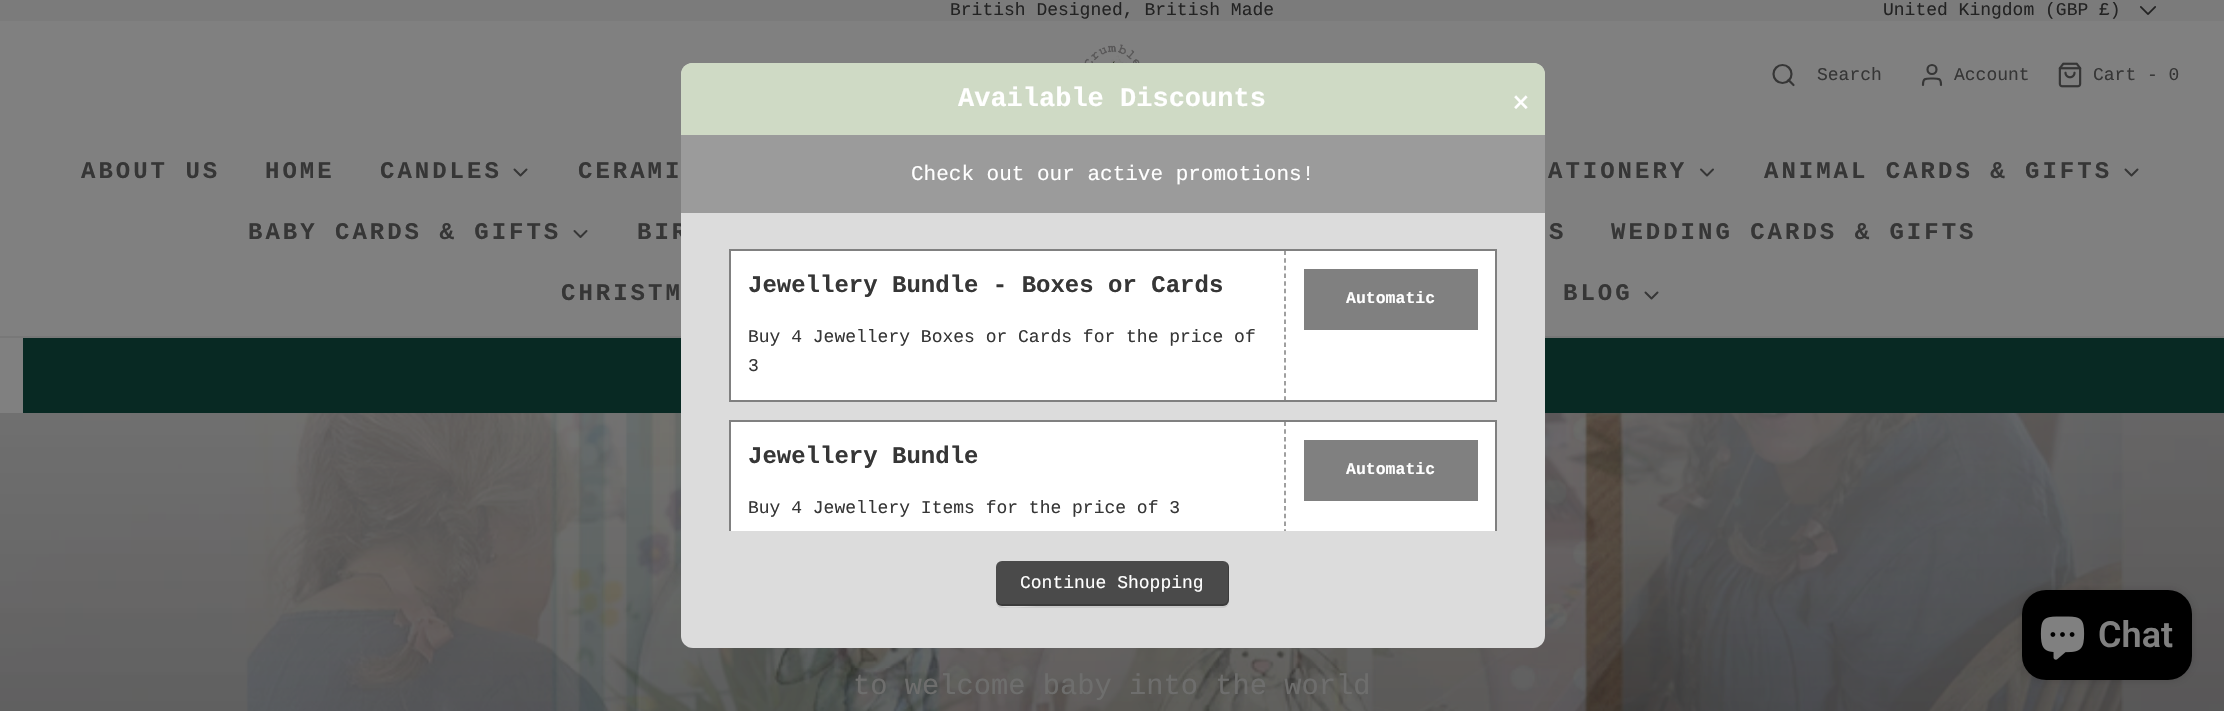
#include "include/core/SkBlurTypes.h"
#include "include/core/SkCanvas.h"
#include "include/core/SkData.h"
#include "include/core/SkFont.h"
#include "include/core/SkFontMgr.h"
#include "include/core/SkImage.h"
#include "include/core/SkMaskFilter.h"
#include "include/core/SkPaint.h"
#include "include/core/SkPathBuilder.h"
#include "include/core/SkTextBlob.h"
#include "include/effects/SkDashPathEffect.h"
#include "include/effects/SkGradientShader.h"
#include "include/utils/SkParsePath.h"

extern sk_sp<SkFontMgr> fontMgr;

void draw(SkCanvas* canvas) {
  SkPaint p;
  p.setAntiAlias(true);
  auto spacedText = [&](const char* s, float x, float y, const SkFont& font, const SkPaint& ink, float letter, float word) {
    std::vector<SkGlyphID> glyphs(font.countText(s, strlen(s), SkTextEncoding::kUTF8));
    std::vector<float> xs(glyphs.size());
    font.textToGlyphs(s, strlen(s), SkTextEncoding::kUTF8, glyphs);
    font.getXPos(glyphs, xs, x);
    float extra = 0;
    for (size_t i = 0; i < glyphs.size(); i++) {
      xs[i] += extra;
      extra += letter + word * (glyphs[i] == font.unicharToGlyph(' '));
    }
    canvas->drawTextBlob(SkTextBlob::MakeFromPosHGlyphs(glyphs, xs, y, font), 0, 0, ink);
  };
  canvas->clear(SkColorSetRGB(128, 128, 128));
  p.setColor(SkColorSetRGB(123, 123, 123));
  canvas->drawRect(SkRect::MakeLTRB(0, 0, 2224, 21), p);
  canvas->drawImageRect(SkImages::DeferredFromEncodedData(SkData::MakeFromFileName("images/1.png")), SkRect::MakeLTRB(2140, 6, 2156, 15), SkSamplingOptions());
  p.setColor(SkColorSetRGB(120, 120, 120));
  canvas->drawRect(SkRect::MakeLTRB(0, 336, 2224, 338), p);
  canvas->drawImageRect(SkImages::DeferredFromEncodedData(SkData::MakeFromFileName("images/2.png")), SkRect::MakeLTRB(1076, 44, 1150, 63), SkSamplingOptions());
  p.setStyle(SkPaint::kStroke_Style);
  p.setStrokeWidth(2.2f);
  p.setColor(SkColorSetRGB(54, 54, 54));
  canvas->drawCircle(1782.5f, 74, 9, p);
  p.setStrokeCap(SkPaint::kRound_Cap);
  p.setStrokeJoin(SkPaint::kRound_Join);
  canvas->drawPath(SkPathBuilder().moveTo(1793.5f, 85).lineTo(1788.5f, 80).detach(), p);
  canvas->drawPath(SkPathBuilder().moveTo(1941, 85).cubicTo(1941, 78, 1938.5f, 78.5f, 1932, 78.5f).cubicTo(1925.5f, 78.5f, 1923, 78, 1923, 85).detach(), p);
  p.setStrokeCap(SkPaint::kButt_Cap);
  p.setStrokeJoin(SkPaint::kMiter_Join);
  canvas->drawCircle(1932, 69.5f, 4.5f, p);
  canvas->drawImageRect(SkImages::DeferredFromEncodedData(SkData::MakeFromFileName("images/3.png")), SkRect::MakeLTRB(2058, 62, 2082, 88), SkSamplingOptions());
  p.setStrokeWidth(2);
  p.setStrokeCap(SkPaint::kRound_Cap);
  p.setStrokeJoin(SkPaint::kRound_Join);
  canvas->drawPath(SkPathBuilder().moveTo(514.5f, 169.5f).lineTo(520.5f, 175.5f).lineTo(526.5f, 169.5f).detach(), p);
  canvas->drawPath(SkPathBuilder().moveTo(1701, 169.5f).lineTo(1707, 175.5f).lineTo(1713, 169.5f).detach(), p);
  canvas->drawPath(SkPathBuilder().moveTo(2125.5f, 169.5f).lineTo(2131.5f, 175.5f).lineTo(2137.5f, 169.5f).detach(), p);
  canvas->drawPath(SkPathBuilder().moveTo(574.5f, 231).lineTo(580.5f, 237).lineTo(586.5f, 231).detach(), p);
  canvas->drawPath(SkPathBuilder().moveTo(1645.5f, 292.5f).lineTo(1651.5f, 298.5f).lineTo(1657.5f, 292.5f).detach(), p);
  p.setStyle(SkPaint::kFill_Style);
  p.setColor(SkColorSetRGB(8, 41, 35));
  canvas->drawRect(SkRect::MakeLTRB(23, 338, 2224, 413), p);
  canvas->drawImageRect(SkImages::DeferredFromEncodedData(SkData::MakeFromFileName("images/4.png")), SkRect::MakeLTRB(245, 413, 2125, 711), SkSamplingOptions());
  {
    const SkColor colors[] = {SkColorSetARGB(71, 3, 3, 3), SkColorSetARGB(23, 28, 28, 28)};
    const float stops[] = {0, 1};
    const SkPoint ends[] = {{1112, 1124}, {1112, 413}};
    p.setShader(SkGradientShader::MakeLinear(ends, colors, stops, 2, SkTileMode::kClamp));
    p.setAlpha(255);
  }
  canvas->drawRect(SkRect::MakeLTRB(0, 413, 2224, 711), p);
  canvas->drawImageRect(SkImages::DeferredFromEncodedData(SkData::MakeFromFileName("images/5.png")), SkRect::MakeLTRB(0, 413, 2224, 711), SkSamplingOptions());
  {
    const SkColor colors[] = {SkColorSetARGB(79, 3, 3, 3), SkColorSetARGB(26, 28, 28, 28)};
    const float stops[] = {0, 1};
    const SkPoint ends[] = {{1112, 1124}, {1112, 413}};
    p.setShader(SkGradientShader::MakeLinear(ends, colors, stops, 2, SkTileMode::kClamp));
    p.setAlpha(255);
  }
  canvas->drawRect(SkRect::MakeLTRB(0, 413, 2224, 711), p);
  p.setShader(nullptr);
  p.setColor(SkColorSetARGB(38, 0, 0, 0));
  p.setMaskFilter(SkMaskFilter::MakeBlur(kNormal_SkBlurStyle, 4));
  canvas->drawRoundRect(SkRect::MakeLTRB(2022, 590, 2192, 680), 24, 24, p);
  p.setMaskFilter(nullptr);
  p.setColor(SK_ColorBLACK);
  canvas->drawRoundRect(SkRect::MakeLTRB(2022, 590, 2192, 680), 24, 24, p);
  canvas->drawImageRect(SkImages::DeferredFromEncodedData(SkData::MakeFromFileName("images/6.png")), SkRect::MakeLTRB(2040, 616, 2085, 660), SkSamplingOptions());
  SkFont font1(fontMgr->matchFamilyStyle("Liberation Mono", SkFontStyle::Normal()), 18);
  font1.setSubpixel(true);
  p.setColor(SkColorSetRGB(35, 35, 35));
  canvas->drawString("British Designed, British Made", 950, 15, font1, p);
  canvas->drawString("United Kingdom (GBP £)", 1883, 15, font1, p);
  p.setColor(SkColorSetRGB(54, 54, 54));
  canvas->drawString("Search", 1817, 80, font1, p);
  canvas->drawString("Account", 1954, 80, font1, p);
  canvas->drawString("Cart - 0", 2093, 80, font1, p);
  SkFont font2(fontMgr->matchFamilyStyle("Liberation Mono", SkFontStyle::Bold()), 24);
  font2.setSubpixel(true);
  spacedText("ABOUT US", 81, 178, font2, p, 3, 0);
  spacedText("HOME", 265, 178, font2, p, 3, 0);
  spacedText("CANDLES", 380, 178, font2, p, 3, 0);
  spacedText("CERAMI", 578, 178, font2, p, 3, 0);
  spacedText("ATIONERY", 1548, 178, font2, p, 3, 0);
  spacedText("ANIMAL CARDS & GIFTS", 1764, 178, font2, p, 3, 0);
  spacedText("BABY CARDS & GIFTS", 248, 239, font2, p, 3, 0);
  spacedText("BIR", 637, 239, font2, p, 3, 0);
  spacedText("S", 1549, 239, font2, p, 3, 0);
  spacedText("WEDDING CARDS & GIFTS", 1611, 239, font2, p, 3, 0);
  spacedText("CHRISTM", 561, 300, font2, p, 3, 0);
  spacedText("BLOG", 1563, 300, font2, p, 3, 0);
  SkFont font3(fontMgr->matchFamilyStyle("Liberation Mono", SkFontStyle::Normal()), 28.75f);
  font3.setSubpixel(true);
  p.setColor(SkColorSetRGB(110, 110, 109));
  canvas->drawString("to welcome baby into the world", 853, 694, font3, p);
  p.setColor(SkColorSetRGB(220, 220, 220));
  canvas->drawRoundRect(SkRect::MakeLTRB(681, 63, 1545, 648), 12, 12, p);
  p.setColor(SkColorSetRGB(207, 218, 197));
  canvas->drawPath(SkPathBuilder().moveTo(692, 63).lineTo(1534, 63).cubicTo(1540, 63, 1545, 68, 1545, 74).lineTo(1545, 135).lineTo(681, 135).lineTo(681, 74).cubicTo(681, 68, 686, 63, 692, 63).close().detach(), p);
  SkFont font4(fontMgr->matchFamilyStyle("Liberation Mono", SkFontStyle::Bold()), 27);
  font4.setSubpixel(true);
  p.setColor(SK_ColorWHITE);
  canvas->drawString("Available Discounts", 958, 106, font4, p);
  SkFont font5(fontMgr->matchFamilyStyle("Roboto", SkFontStyle::Normal()), 30);
  font5.setSubpixel(true);
  canvas->drawString("×", 1513, 112, font5, p);
  p.setColor(SkColorSetRGB(155, 155, 155));
  canvas->drawRect(SkRect::MakeLTRB(681, 135, 1545, 213), p);
  SkFont font6(fontMgr->matchFamilyStyle("Liberation Mono", SkFontStyle::Normal()), 21);
  font6.setSubpixel(true);
  p.setColor(SK_ColorWHITE);
  canvas->drawString("Check out our active promotions!", 911, 180, font6, p);
  canvas->drawRect(SkRect::MakeLTRB(730, 250, 1496, 401), p);
  p.setStyle(SkPaint::kStroke_Style);
  p.setStrokeCap(SkPaint::kButt_Cap);
  p.setStrokeJoin(SkPaint::kMiter_Join);
  p.setColor(SkColorSetRGB(128, 128, 128));
  canvas->drawRect(SkRect::MakeLTRB(730, 250, 1496, 401), p);
  p.setStrokeWidth(1.5f);
  p.setPathEffect(SkDashPathEffect::Make({{4.5f, 3.17f}}, 0));
  canvas->drawPath(SkPathBuilder().moveTo(1285, 250.5f).lineTo(1285, 400.5f).detach(), p);
  p.setPathEffect(nullptr);
  p.setStyle(SkPaint::kFill_Style);
  p.setColor(SkColorSetRGB(54, 54, 54));
  canvas->drawString("Jewellery Bundle - Boxes or Cards", 748, 292, font2, p);
  canvas->drawString("Buy 4 Jewellery Boxes or Cards for the price of", 748, 342, font1, p);
  canvas->drawString("3", 748, 371, font1, p);
  p.setColor(SkColorSetRGB(128, 128, 128));
  canvas->drawRect(SkRect::MakeLTRB(1304, 269, 1478, 330), p);
  SkFont font7(fontMgr->matchFamilyStyle("Liberation Mono", SkFontStyle::Bold()), 16.5f);
  font7.setSubpixel(true);
  p.setColor(SK_ColorWHITE);
  canvas->drawString("Automatic", 1346, 303, font7, p);
  canvas->drawRect(SkRect::MakeLTRB(731, 422, 1495, 531), p);
  canvas->save();
  canvas->clipRect(SkRect::MakeLTRB(681, 249, 1545, 531));
  p.setStyle(SkPaint::kStroke_Style);
  p.setStrokeWidth(2);
  p.setColor(SkColorSetRGB(128, 128, 128));
  canvas->drawRect(SkRect::MakeLTRB(730, 421, 1496, 542), p);
  p.setStrokeWidth(1.5f);
  p.setPathEffect(SkDashPathEffect::Make({{4.5f, 3.19f}}, 0));
  canvas->drawPath(SkPathBuilder().moveTo(1285, 421.5f).lineTo(1285, 541.5f).detach(), p);
  p.setPathEffect(nullptr);
  canvas->restore();
  p.setStyle(SkPaint::kFill_Style);
  p.setColor(SkColorSetRGB(54, 54, 54));
  canvas->drawString("Jewellery Bundle", 748, 463, font2, p);
  canvas->drawString("Buy 4 Jewellery Items for the price of 3", 748, 513, font1, p);
  p.setColor(SkColorSetRGB(128, 128, 128));
  canvas->drawRect(SkRect::MakeLTRB(1304, 440, 1478, 501), p);
  p.setColor(SK_ColorWHITE);
  canvas->drawString("Automatic", 1346, 474, font7, p);
  p.setColor(SkColorSetRGB(202, 202, 202));
  canvas->drawPath(SkPathBuilder().moveTo(996, 600).lineTo(996, 602).cubicTo(996, 605, 999, 608, 1002, 608).lineTo(1223, 608).cubicTo(1226, 608, 1229, 605, 1229, 602).lineTo(1229, 569).lineTo(1228, 567).lineTo(1228, 589).cubicTo(1228, 594, 1231, 606, 1222, 606).lineTo(1039, 606).cubicTo(1027, 606, 996, 612, 996, 600).close().detach(), p);
  p.setColor(SkColorSetRGB(74, 74, 74));
  canvas->drawRoundRect(SkRect::MakeLTRB(996, 561, 1229, 606), 6, 6, p);
  p.setColor(SkColorSetARGB(51, 0, 0, 0));
  canvas->drawPath(SkPathBuilder().moveTo(996, 598).lineTo(996, 600).cubicTo(996, 603, 999, 606, 1002, 606).lineTo(1223, 606).cubicTo(1226, 606, 1229, 603, 1229, 600).lineTo(1229, 567).cubicTo(1229, 565, 1228, 564, 1227, 563).lineTo(1228, 566).lineTo(1228, 598).cubicTo(1228, 602, 1226, 604, 1222, 604).lineTo(1002, 604).cubicTo(999, 604, 996, 602, 996, 598).close().detach(), p);
  p.setColor(SK_ColorWHITE);
  canvas->drawString("Continue Shopping", 1020, 588, font1, p);
  SkFont font8(fontMgr->matchFamilyStyle("Roboto", SkFontStyle(600, SkFontStyle::kNormal_Width, SkFontStyle::kUpright_Slant)), 36);
  font8.setSubpixel(true);
  p.setColor(SkColorSetRGB(128, 128, 128));
  canvas->drawString("Chat", 2098, 647, font8, p);
}
